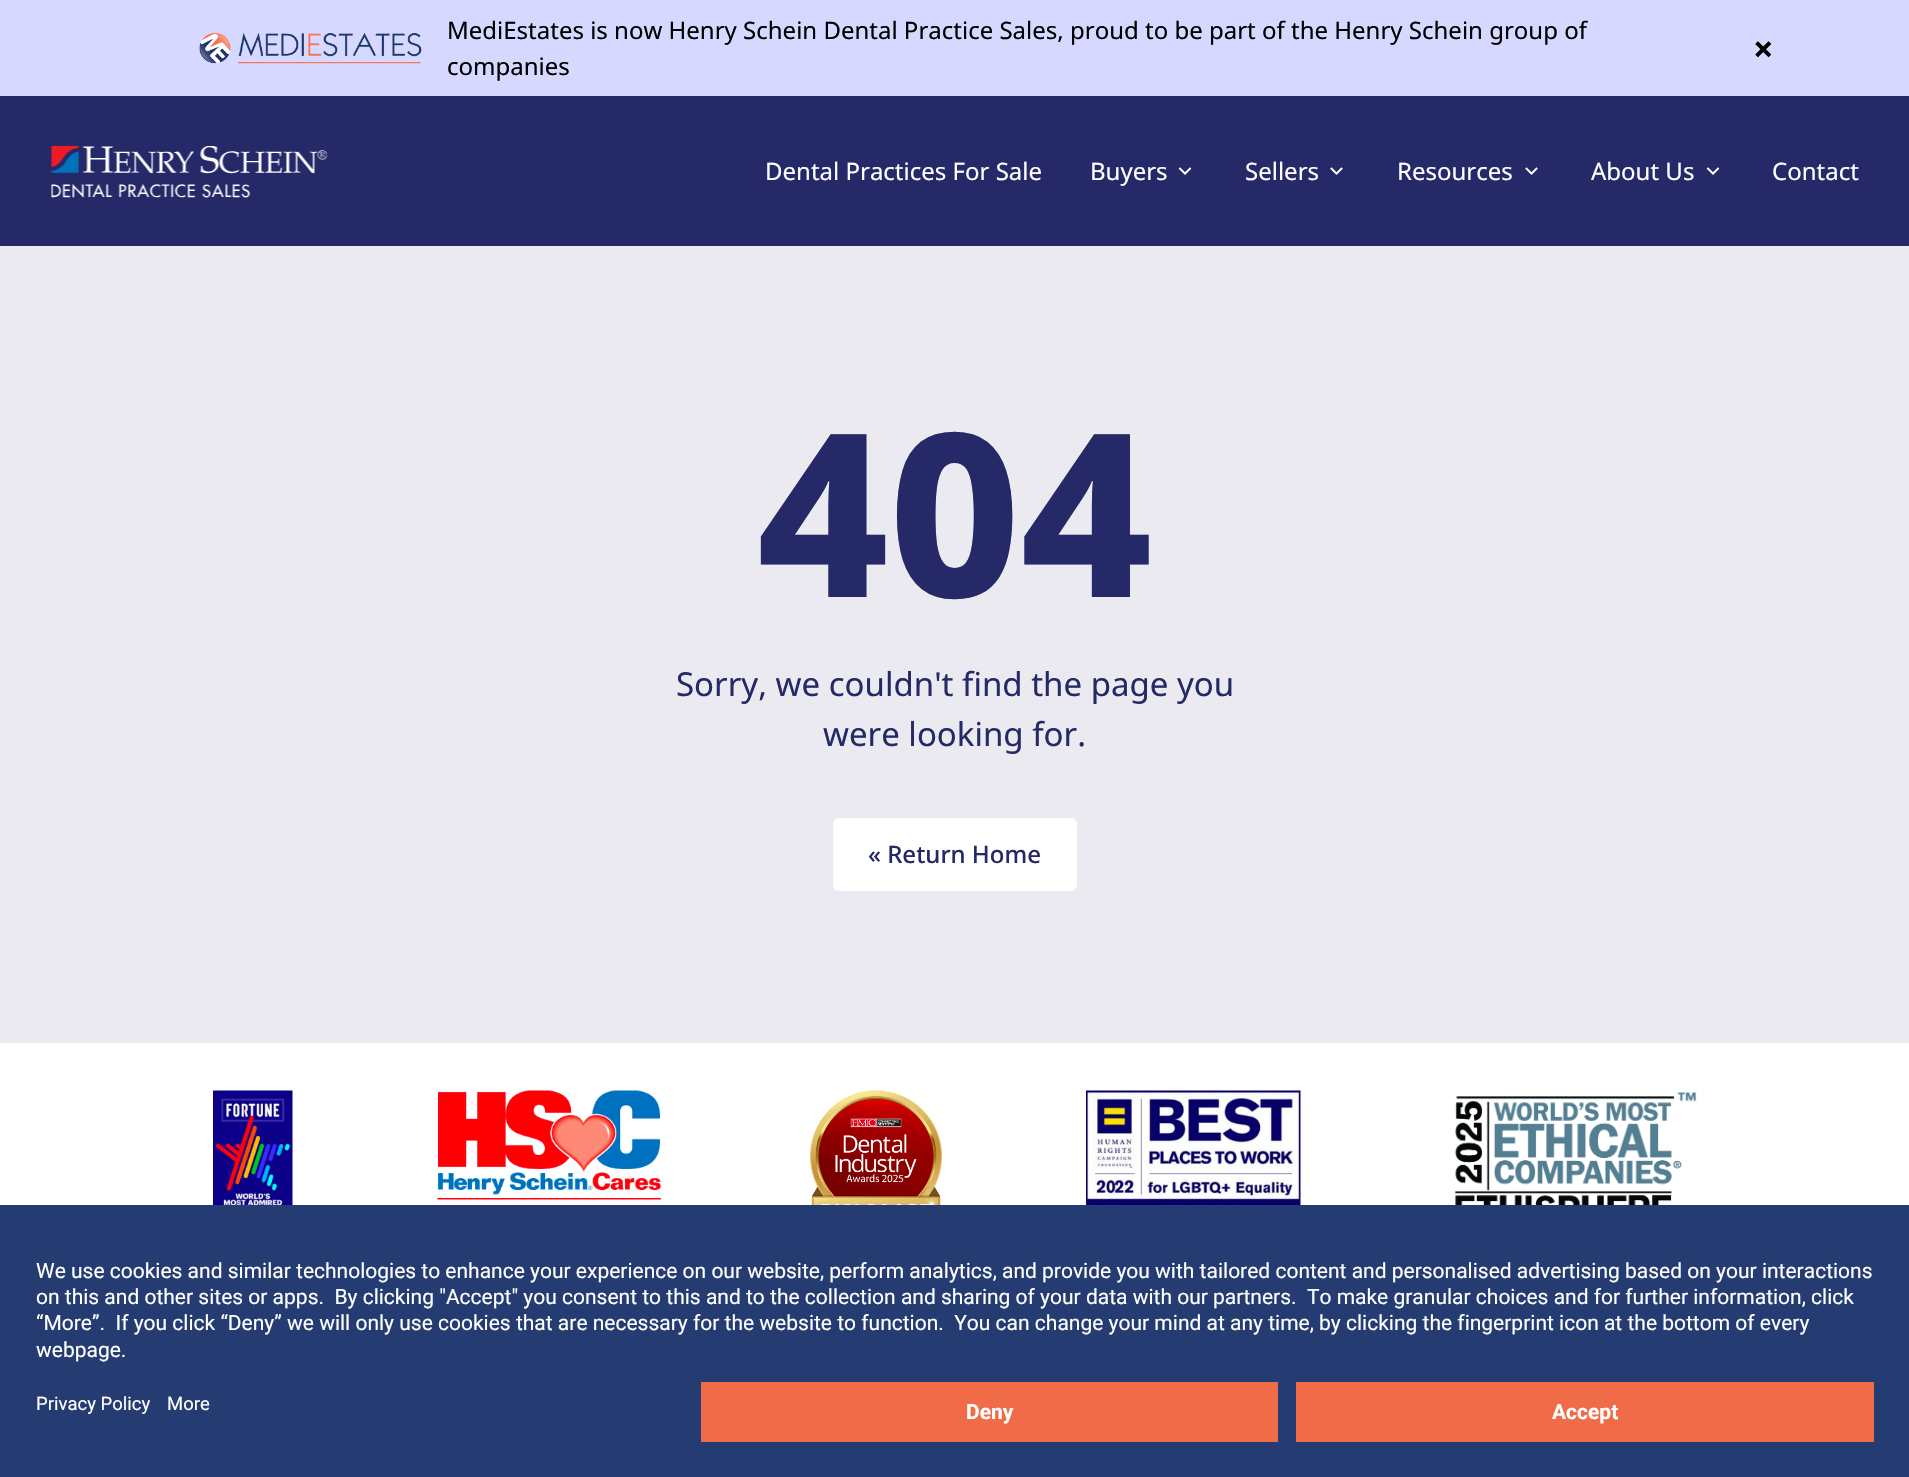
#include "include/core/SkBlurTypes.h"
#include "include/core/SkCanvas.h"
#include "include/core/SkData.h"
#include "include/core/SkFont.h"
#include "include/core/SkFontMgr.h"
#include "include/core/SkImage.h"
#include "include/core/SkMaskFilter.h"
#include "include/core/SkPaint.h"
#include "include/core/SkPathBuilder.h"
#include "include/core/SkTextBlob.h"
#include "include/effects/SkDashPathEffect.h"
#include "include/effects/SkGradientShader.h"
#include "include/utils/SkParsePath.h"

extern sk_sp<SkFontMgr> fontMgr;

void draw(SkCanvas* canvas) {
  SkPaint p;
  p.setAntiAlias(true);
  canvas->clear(SK_ColorWHITE);
  p.setColor(SkColorSetRGB(215, 216, 255));
  canvas->drawRect(SkRect::MakeLTRB(0, 0, 1909, 96), p);
  canvas->drawImageRect(SkImages::DeferredFromEncodedData(SkData::MakeFromFileName("images/1.png")), SkRect::MakeLTRB(199, 32, 422, 64), SkSamplingOptions());
  p.setColor(SkColorSetRGB(37, 41, 103));
  canvas->drawRect(SkRect::MakeLTRB(0, 96, 1909, 246), p);
  canvas->drawImageRect(SkImages::DeferredFromEncodedData(SkData::MakeFromFileName("images/2.png")), SkRect::MakeLTRB(51, 146, 328, 198), SkSamplingOptions());
  canvas->drawImageRect(SkImages::DeferredFromEncodedData(SkData::MakeFromFileName("images/3.png")), SkRect::MakeLTRB(1178, 167, 1192, 175), SkSamplingOptions());
  canvas->drawImageRect(SkImages::DeferredFromEncodedData(SkData::MakeFromFileName("images/4.png")), SkRect::MakeLTRB(1330, 167, 1343, 175), SkSamplingOptions());
  canvas->drawImageRect(SkImages::DeferredFromEncodedData(SkData::MakeFromFileName("images/4.png")), SkRect::MakeLTRB(1525, 167, 1538, 175), SkSamplingOptions());
  canvas->drawImageRect(SkImages::DeferredFromEncodedData(SkData::MakeFromFileName("images/3.png")), SkRect::MakeLTRB(1706, 167, 1720, 175), SkSamplingOptions());
  p.setColor(SkColorSetRGB(234, 234, 240));
  canvas->drawRect(SkRect::MakeLTRB(0, 246, 1909, 1043), p);
  p.setColor(SK_ColorWHITE);
  canvas->drawRoundRect(SkRect::MakeLTRB(833, 818, 1077, 891), 6, 6, p);
  canvas->drawImageRect(SkImages::DeferredFromEncodedData(SkData::MakeFromFileName("images/5.png")), SkRect::MakeLTRB(213, 1090, 293, 1205), SkSamplingOptions());
  canvas->drawImageRect(SkImages::DeferredFromEncodedData(SkData::MakeFromFileName("images/6.png")), SkRect::MakeLTRB(437, 1090, 666, 1205), SkSamplingOptions());
  canvas->drawImageRect(SkImages::DeferredFromEncodedData(SkData::MakeFromFileName("images/7.png")), SkRect::MakeLTRB(810, 1090, 942, 1205), SkSamplingOptions());
  canvas->drawImageRect(SkImages::DeferredFromEncodedData(SkData::MakeFromFileName("images/8.png")), SkRect::MakeLTRB(1086, 1090, 1301, 1205), SkSamplingOptions());
  canvas->drawImageRect(SkImages::DeferredFromEncodedData(SkData::MakeFromFileName("images/9.png")), SkRect::MakeLTRB(1454, 1092, 1697, 1205), SkSamplingOptions());
  p.setColor(SkColorSetRGB(36, 60, 113));
  canvas->drawRect(SkRect::MakeLTRB(0, 1205, 1909, 1477), p);
  p.setColor(SkColorSetRGB(240, 107, 71));
  canvas->drawRect(SkRect::MakeLTRB(701, 1382, 1278, 1442), p);
  canvas->drawRect(SkRect::MakeLTRB(1296, 1382, 1874, 1442), p);
  SkFont font1(fontMgr->matchFamilyStyle("Noto Sans", SkFontStyle::Normal()), 24);
  font1.setSubpixel(true);
  p.setColor(SK_ColorBLACK);
  canvas->drawString("MediEstates is now Henry Schein Dental Practice Sales, proud to be part of the Henry Schein group of", 447, 39, font1, p);
  canvas->drawString("companies", 447, 75, font1, p);
  SkFont font2(fontMgr->matchFamilyStyle("Noto Sans", SkFontStyle::Bold()), 36);
  font2.setSubpixel(true);
  canvas->drawString("×", 1753, 62, font2, p);
  p.setColor(SK_ColorWHITE);
  canvas->drawString("Dental Practices For Sale", 765, 180, font1, p);
  canvas->drawString("Buyers", 1090, 180, font1, p);
  canvas->drawString("Sellers", 1245, 180, font1, p);
  canvas->drawString("Resources", 1397, 180, font1, p);
  canvas->drawString("About Us", 1591, 180, font1, p);
  canvas->drawString("Contact", 1772, 180, font1, p);
  SkFont font3(fontMgr->matchFamilyStyle("Noto Sans", SkFontStyle(800, SkFontStyle::kNormal_Width, SkFontStyle::kUpright_Slant)), 228);
  font3.setSubpixel(true);
  p.setColor(SkColorSetRGB(37, 41, 103));
  canvas->drawString("404", 757, 597, font3, p);
  SkFont font4(fontMgr->matchFamilyStyle("Noto Sans", SkFontStyle::Normal()), 33);
  font4.setSubpixel(true);
  canvas->drawString("Sorry, we couldn't find the page you", 676, 696, font4, p);
  canvas->drawString("were looking for.", 823, 746, font4, p);
  SkFont font5(fontMgr->matchFamilyStyle("Noto Sans", SkFontStyle(500, SkFontStyle::kNormal_Width, SkFontStyle::kUpright_Slant)), 24);
  font5.setSubpixel(true);
  canvas->drawString("« Return Home", 868, 863, font5, p);
  SkFont font6(fontMgr->matchFamilyStyle("Roboto", SkFontStyle::Normal()), 21);
  font6.setSubpixel(true);
  p.setColor(SK_ColorWHITE);
  canvas->drawString("We use cookies and similar technologies to enhance your experience on our website, perform analytics, and provide you with tailored content and personalised advertising based on your interactions", 36, 1278, font6, p);
  canvas->drawString("on this and other sites or apps.  By clicking \"Accept\" you consent to this and to the collection and sharing of your data with our partners.  To make granular choices and for further information, click", 36, 1304, font6, p);
  canvas->drawString("“More”.  If you click “Deny” we will only use cookies that are necessary for the website to function.  You can change your mind at any time, by clicking the fingerprint icon at the bottom of every", 36, 1330, font6, p);
  canvas->drawString("webpage.", 36, 1357, font6, p);
  SkFont font7(fontMgr->matchFamilyStyle("Roboto", SkFontStyle::Normal()), 18.5f);
  font7.setSubpixel(true);
  canvas->drawString("Privacy Policy", 36, 1410, font7, p);
  canvas->drawString("More", 167, 1410, font7, p);
  SkFont font8(fontMgr->matchFamilyStyle("Roboto", SkFontStyle::Bold()), 21);
  font8.setSubpixel(true);
  canvas->drawString("Deny", 966, 1419, font8, p);
  canvas->drawString("Accept", 1552, 1419, font8, p);
}
